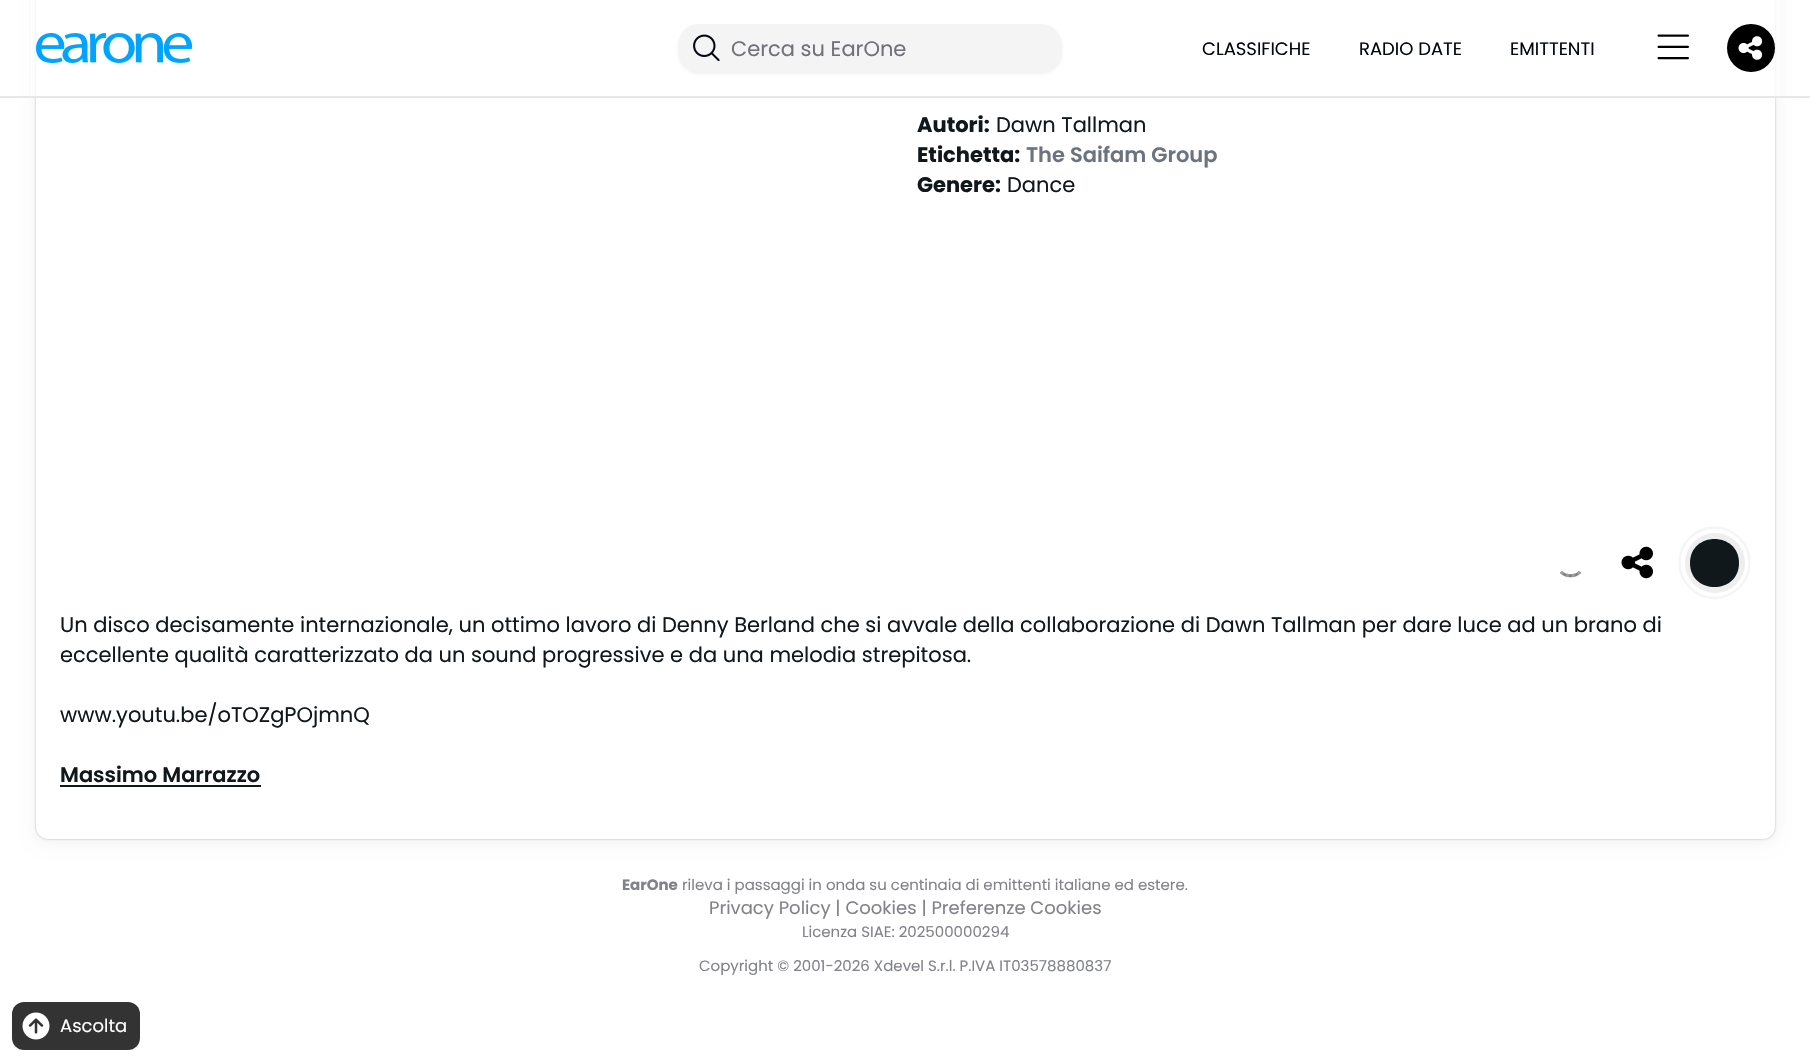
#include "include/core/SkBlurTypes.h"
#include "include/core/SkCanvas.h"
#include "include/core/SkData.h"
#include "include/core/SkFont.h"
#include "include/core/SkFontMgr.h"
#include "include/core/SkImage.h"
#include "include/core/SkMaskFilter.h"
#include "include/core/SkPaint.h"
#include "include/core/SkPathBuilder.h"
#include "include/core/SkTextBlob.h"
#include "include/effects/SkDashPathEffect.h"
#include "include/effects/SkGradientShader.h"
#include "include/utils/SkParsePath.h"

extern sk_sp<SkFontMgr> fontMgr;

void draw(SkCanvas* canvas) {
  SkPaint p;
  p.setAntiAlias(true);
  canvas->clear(SK_ColorWHITE);
  p.setColor(SkColorSetARGB(77, 0, 0, 0));
  p.setMaskFilter(SkMaskFilter::MakeBlur(kNormal_SkBlurStyle, 1));
  canvas->drawRoundRect(SkRect::MakeLTRB(36, -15, 1775, 839), 12, 12, p);
  p.setMaskFilter(nullptr);
  p.setColor(SkColorSetARGB(15, 0, 0, 0));
  p.setMaskFilter(SkMaskFilter::MakeBlur(kNormal_SkBlurStyle, 7.5f));
  canvas->drawRoundRect(SkRect::MakeLTRB(36, -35, 1775, 842), 12, 12, p);
  p.setMaskFilter(nullptr);
  p.setColor(SK_ColorWHITE);
  canvas->drawRoundRect(SkRect::MakeLTRB(36, -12, 1775, 839), 12, 12, p);
  p.setColor(SkColorSetARGB(179, 255, 255, 255));
  canvas->drawRect(SkRect::MakeLTRB(31, 0, 1780, 96), p);
  p.setColor(SkColorSetRGB(229, 231, 235));
  canvas->drawRect(SkRect::MakeLTRB(0, 96, 1810, 98), p);
  canvas->drawImageRect(SkImages::DeferredFromEncodedData(SkData::MakeFromFileName("images/1.png")), SkRect::MakeLTRB(36, 33, 192, 63), SkSamplingOptions());
  p.setColor(SkColorSetARGB(13, 0, 0, 0));
  p.setMaskFilter(SkMaskFilter::MakeBlur(kNormal_SkBlurStyle, 1.5f));
  canvas->drawRoundRect(SkRect::MakeLTRB(678, 26, 1062, 74), 21, 21, p);
  p.setMaskFilter(nullptr);
  p.setColor(SkColorSetRGB(244, 244, 245));
  canvas->drawRoundRect(SkRect::MakeLTRB(678, 24, 1062, 72), 21, 21, p);
  canvas->drawImageRect(SkImages::DeferredFromEncodedData(SkData::MakeFromFileName("images/2.png")), SkRect::MakeLTRB(693, 34, 720, 62), SkSamplingOptions());
  canvas->drawImageRect(SkImages::DeferredFromEncodedData(SkData::MakeFromFileName("images/3.png")), SkRect::MakeLTRB(1657, 34, 1689, 60), SkSamplingOptions());
  p.setColor(SK_ColorBLACK);
  canvas->drawCircle(1751, 48, 24, p);
  canvas->drawImageRect(SkImages::DeferredFromEncodedData(SkData::MakeFromFileName("images/4.png")), SkRect::MakeLTRB(1738, 36, 1763, 60), SkSamplingOptions());
  p.setStyle(SkPaint::kStroke_Style);
  p.setStrokeWidth(3);
  p.setColor(SkColorSetRGB(128, 128, 128));
  canvas->drawPath(SkPathBuilder().moveTo(1580, 572).cubicTo(1575, 577, 1566, 577, 1561, 572).detach(), p);
  p.setColor(SkColorSetRGB(159, 159, 159));
  p.setPathEffect(SkDashPathEffect::Make({{3, 3}}, 0));
  canvas->drawPath(SkPathBuilder().moveTo(1580, 572).cubicTo(1575, 577, 1566, 577, 1561, 572).detach(), p);
  p.setPathEffect(nullptr);
  canvas->drawImageRect(SkImages::DeferredFromEncodedData(SkData::MakeFromFileName("images/5.png")), SkRect::MakeLTRB(1621, 546, 1653, 579), SkSamplingOptions());
  p.setStrokeWidth(2.3f);
  p.setStrokeCap(SkPaint::kRound_Cap);
  p.setColor(SkColorSetRGB(245, 245, 246));
  canvas->drawPath(SkPathBuilder().moveTo(1679.5f, 562.5f).cubicTo(1679.5f, 543.5f, 1695, 527.5f, 1714.5f, 527.5f).cubicTo(1734, 527.5f, 1749.5f, 543.5f, 1749.5f, 562.5f).cubicTo(1749.5f, 582, 1734, 598, 1714.5f, 598).cubicTo(1695, 598, 1679.5f, 582, 1679.5f, 562.5f).detach(), p);
  p.setStyle(SkPaint::kFill_Style);
  p.setColor(SkColorSetRGB(238, 238, 239));
  canvas->drawCircle(1715, 563, 30, p);
  p.setColor(SkColorSetRGB(17, 24, 28));
  canvas->drawPath(SkPathBuilder().moveTo(1690, 563).cubicTo(1690, 531, 1739, 531, 1739, 563).cubicTo(1739, 595, 1690, 595, 1690, 563).close().detach(), p);
  canvas->drawRect(SkRect::MakeLTRB(60, 785, 261, 787), p);
  p.setColor(SkColorSetRGB(51, 51, 51));
  canvas->drawRoundRect(SkRect::MakeLTRB(12, 1002, 140, 1050), 12, 12, p);
  canvas->drawImageRect(SkImages::DeferredFromEncodedData(SkData::MakeFromFileName("images/6.png")), SkRect::MakeLTRB(22, 1012, 50, 1040), SkSamplingOptions());
  SkFont font1(fontMgr->matchFamilyStyle("Poppins", SkFontStyle::Normal()), 21);
  font1.setSubpixel(true);
  p.setColor(SkColorSetRGB(113, 113, 122));
  canvas->drawString("Cerca su EarOne", 731, 56, font1, p);
  SkFont font2(fontMgr->matchFamilyStyle("Poppins", SkFontStyle::Normal()), 18);
  font2.setSubpixel(true);
  p.setColor(SkColorSetRGB(3, 7, 18));
  canvas->drawString("CLASSIFICHE", 1202, 55, font2, p);
  canvas->drawString("RADIO DATE", 1359, 55, font2, p);
  canvas->drawString("EMITTENTI", 1510, 55, font2, p);
  SkFont font3(fontMgr->matchFamilyStyle("Poppins", SkFontStyle::Bold()), 21);
  font3.setSubpixel(true);
  p.setColor(SkColorSetRGB(17, 24, 28));
  canvas->drawString("Autori:", 917, 132, font3, p);
  canvas->drawString("Dawn Tallman", 996, 132, font1, p);
  canvas->drawString("Etichetta:", 917, 162, font3, p);
  SkFont font4(fontMgr->matchFamilyStyle("Poppins", SkFontStyle(600, SkFontStyle::kNormal_Width, SkFontStyle::kUpright_Slant)), 21);
  font4.setSubpixel(true);
  p.setColor(SkColorSetRGB(107, 114, 128));
  canvas->drawString("The Saifam Group", 1026, 162, font4, p);
  p.setColor(SkColorSetRGB(17, 24, 28));
  canvas->drawString("Genere:", 917, 192, font3, p);
  canvas->drawString("Dance", 1007, 192, font1, p);
  canvas->drawString("Un disco decisamente internazionale, un ottimo lavoro di Denny Berland che si avvale della collaborazione di Dawn Tallman per dare luce ad un brano di", 60, 632, font1, p);
  canvas->drawString("eccellente qualità caratterizzato da un sound progressive e da una melodia strepitosa.", 60, 662, font1, p);
  canvas->drawString("www.youtu.be/oTOZgPOjmnQ", 60, 722, font1, p);
  canvas->drawString("Massimo Marrazzo", 60, 782, font4, p);
  SkFont font5(fontMgr->matchFamilyStyle("Poppins", SkFontStyle::Bold()), 15);
  font5.setSubpixel(true);
  p.setColor(SkColorSetRGB(129, 131, 137));
  canvas->drawString("EarOne", 622, 890, font5, p);
  SkFont font6(fontMgr->matchFamilyStyle("Poppins", SkFontStyle::Normal()), 15);
  font6.setSubpixel(true);
  canvas->drawString("rileva i passaggi in onda su centinaia di emittenti italiane ed estere.", 682, 890, font6, p);
  canvas->drawString("Privacy Policy | Cookies | Preferenze Cookies", 709, 914, font2, p);
  canvas->drawString("Licenza SIAE: 202500000294", 802, 937, font6, p);
  canvas->drawString("Copyright © 2001-2026 Xdevel S.r.l. P.IVA IT03578880837", 699, 971, font6, p);
  p.setColor(SK_ColorWHITE);
  canvas->drawString("Ascolta", 60, 1032, font2, p);
}
